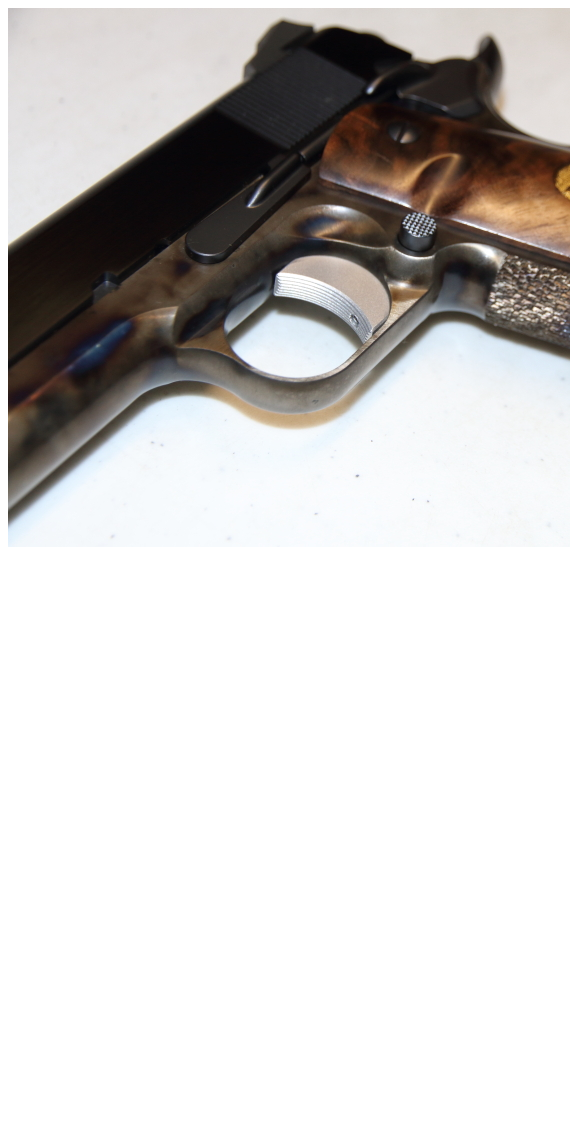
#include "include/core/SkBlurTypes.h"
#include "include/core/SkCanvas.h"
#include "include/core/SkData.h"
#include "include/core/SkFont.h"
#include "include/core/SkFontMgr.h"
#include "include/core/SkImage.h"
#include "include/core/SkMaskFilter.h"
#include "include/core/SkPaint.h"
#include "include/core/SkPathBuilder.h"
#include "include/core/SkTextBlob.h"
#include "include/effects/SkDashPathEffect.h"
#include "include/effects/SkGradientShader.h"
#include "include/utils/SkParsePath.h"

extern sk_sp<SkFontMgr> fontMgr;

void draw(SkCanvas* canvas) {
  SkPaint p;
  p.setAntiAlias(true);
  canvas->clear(SK_ColorWHITE);
  canvas->drawImageRect(SkImages::DeferredFromEncodedData(SkData::MakeFromFileName("images/1.png")), SkRect::MakeLTRB(8, 8, 570, 547), SkSamplingOptions());
}
